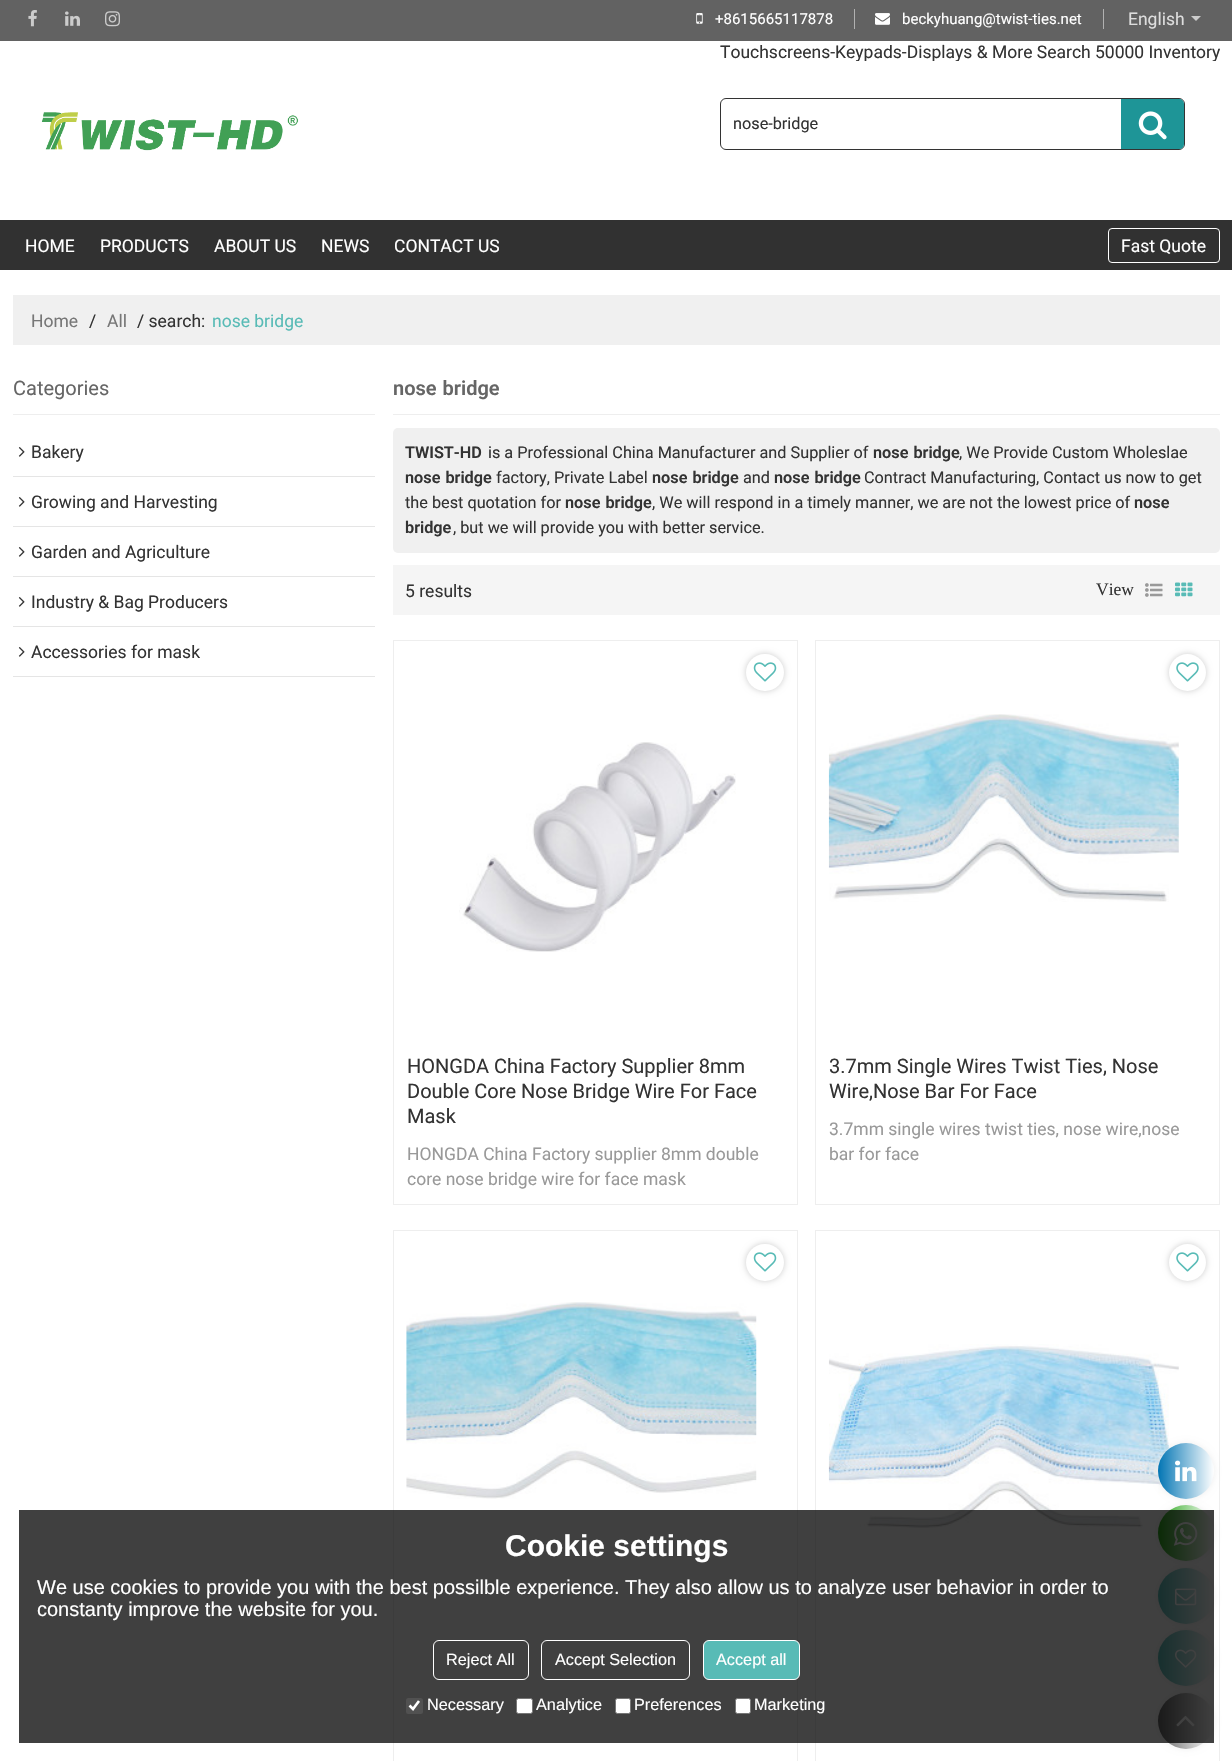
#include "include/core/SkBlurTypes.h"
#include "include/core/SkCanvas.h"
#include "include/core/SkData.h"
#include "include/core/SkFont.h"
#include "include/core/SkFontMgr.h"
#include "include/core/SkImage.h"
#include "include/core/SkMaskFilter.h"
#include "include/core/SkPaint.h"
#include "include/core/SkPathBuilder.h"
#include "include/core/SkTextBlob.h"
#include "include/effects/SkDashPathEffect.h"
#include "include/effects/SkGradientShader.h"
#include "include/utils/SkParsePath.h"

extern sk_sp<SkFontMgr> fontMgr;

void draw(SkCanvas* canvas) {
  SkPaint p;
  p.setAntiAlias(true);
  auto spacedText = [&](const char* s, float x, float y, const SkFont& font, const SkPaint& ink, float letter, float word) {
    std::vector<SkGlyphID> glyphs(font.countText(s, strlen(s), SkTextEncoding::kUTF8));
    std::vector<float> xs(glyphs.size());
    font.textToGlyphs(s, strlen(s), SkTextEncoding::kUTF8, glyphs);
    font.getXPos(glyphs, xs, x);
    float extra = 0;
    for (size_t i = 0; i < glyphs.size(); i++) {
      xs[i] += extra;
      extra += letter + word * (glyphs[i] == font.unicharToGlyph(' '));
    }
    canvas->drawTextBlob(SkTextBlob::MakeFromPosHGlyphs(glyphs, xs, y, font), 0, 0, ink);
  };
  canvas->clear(SK_ColorWHITE);
  p.setColor(SkColorSetRGB(98, 98, 98));
  canvas->drawRect(SkRect::MakeLTRB(0, 0, 1232, 41), p);
  canvas->drawImageRect(SkImages::DeferredFromEncodedData(SkData::MakeFromFileName("images/1.png")), SkRect::MakeLTRB(28, 10, 37, 27), SkSamplingOptions());
  canvas->drawImageRect(SkImages::DeferredFromEncodedData(SkData::MakeFromFileName("images/2.png")), SkRect::MakeLTRB(65, 11, 80, 26), SkSamplingOptions());
  canvas->drawImageRect(SkImages::DeferredFromEncodedData(SkData::MakeFromFileName("images/3.png")), SkRect::MakeLTRB(105, 11, 120, 27), SkSamplingOptions());
  p.setColor(SkColorSetRGB(177, 177, 177));
  canvas->drawRect(SkRect::MakeLTRB(854, 9, 855, 29), p);
  canvas->drawImageRect(SkImages::DeferredFromEncodedData(SkData::MakeFromFileName("images/4.png")), SkRect::MakeLTRB(696, 13, 703, 24), SkSamplingOptions());
  canvas->drawRect(SkRect::MakeLTRB(1103, 9, 1104, 29), p);
  canvas->drawImageRect(SkImages::DeferredFromEncodedData(SkData::MakeFromFileName("images/5.png")), SkRect::MakeLTRB(875, 13, 890, 25), SkSamplingOptions());
  p.setColor(SkColorSetRGB(204, 204, 204));
  canvas->drawPath(SkPathBuilder().moveTo(1191, 16).lineTo(1201, 16).lineTo(1196, 21).close().detach(), p);
  canvas->drawImageRect(SkImages::DeferredFromEncodedData(SkData::MakeFromFileName("images/6.png")), SkRect::MakeLTRB(41, 112, 299, 151), SkSamplingOptions());
  p.setStyle(SkPaint::kStroke_Style);
  p.setStrokeWidth(1);
  p.setColor(SkColorSetRGB(51, 51, 51));
  canvas->drawRoundRect(SkRect::MakeLTRB(720.5f, 98.5f, 1184.5f, 149.5f), 5.5f, 5.5f, p);
  p.setStyle(SkPaint::kFill_Style);
  p.setColor(SkColorSetRGB(30, 149, 151));
  canvas->drawPath(SkPathBuilder().moveTo(1121, 99).lineTo(1179, 99).cubicTo(1182, 99, 1184, 101, 1184, 104).lineTo(1184, 144).cubicTo(1184, 147, 1182, 149, 1179, 149).lineTo(1121, 149).close().detach(), p);
  canvas->drawImageRect(SkImages::DeferredFromEncodedData(SkData::MakeFromFileName("images/7.png")), SkRect::MakeLTRB(1138, 111, 1167, 140), SkSamplingOptions());
  p.setColor(SkColorSetRGB(49, 49, 49));
  canvas->drawRect(SkRect::MakeLTRB(0, 220, 1232, 270), p);
  p.setStyle(SkPaint::kStroke_Style);
  p.setColor(SK_ColorWHITE);
  canvas->drawRoundRect(SkRect::MakeLTRB(1108.5f, 228.5f, 1219.5f, 262.5f), 3.5f, 3.5f, p);
  p.setStyle(SkPaint::kFill_Style);
  p.setColor(SkColorSetRGB(240, 240, 240));
  canvas->drawRect(SkRect::MakeLTRB(13, 295, 1220, 345), p);
  p.setColor(SkColorSetRGB(238, 238, 238));
  canvas->drawRect(SkRect::MakeLTRB(13, 414, 375, 415), p);
  p.setColor(SkColorSetRGB(229, 229, 229));
  canvas->drawRect(SkRect::MakeLTRB(13, 476, 375, 477), p);
  canvas->drawImageRect(SkImages::DeferredFromEncodedData(SkData::MakeFromFileName("images/8.png")), SkRect::MakeLTRB(18, 447, 25, 457), SkSamplingOptions());
  canvas->drawRect(SkRect::MakeLTRB(13, 526, 375, 527), p);
  canvas->drawImageRect(SkImages::DeferredFromEncodedData(SkData::MakeFromFileName("images/8.png")), SkRect::MakeLTRB(18, 497, 25, 507), SkSamplingOptions());
  canvas->drawRect(SkRect::MakeLTRB(13, 576, 375, 577), p);
  canvas->drawImageRect(SkImages::DeferredFromEncodedData(SkData::MakeFromFileName("images/8.png")), SkRect::MakeLTRB(18, 547, 25, 557), SkSamplingOptions());
  canvas->drawRect(SkRect::MakeLTRB(13, 626, 375, 627), p);
  canvas->drawImageRect(SkImages::DeferredFromEncodedData(SkData::MakeFromFileName("images/8.png")), SkRect::MakeLTRB(18, 597, 25, 607), SkSamplingOptions());
  canvas->drawRect(SkRect::MakeLTRB(13, 676, 375, 677), p);
  canvas->drawImageRect(SkImages::DeferredFromEncodedData(SkData::MakeFromFileName("images/8.png")), SkRect::MakeLTRB(18, 647, 25, 657), SkSamplingOptions());
  p.setColor(SkColorSetRGB(238, 238, 238));
  canvas->drawRect(SkRect::MakeLTRB(393, 414, 1220, 415), p);
  p.setColor(SkColorSetRGB(240, 240, 240));
  canvas->drawRoundRect(SkRect::MakeLTRB(393, 428, 1220, 553), 5, 5, p);
  p.setColor(SkColorSetRGB(245, 245, 245));
  canvas->drawRect(SkRect::MakeLTRB(393, 565, 1220, 615), p);
  canvas->drawImageRect(SkImages::DeferredFromEncodedData(SkData::MakeFromFileName("images/9.png")), SkRect::MakeLTRB(1145, 583, 1163, 597), SkSamplingOptions());
  canvas->drawImageRect(SkImages::DeferredFromEncodedData(SkData::MakeFromFileName("images/10.png")), SkRect::MakeLTRB(1175, 582, 1193, 597), SkSamplingOptions());
  p.setStyle(SkPaint::kStroke_Style);
  p.setColor(SkColorSetRGB(238, 238, 238));
  canvas->drawRect(SkRect::MakeLTRB(393.5f, 640.5f, 797.5f, 1204.5f), p);
  p.setStyle(SkPaint::kFill_Style);
  p.setColor(SkColorSetARGB(51, 0, 0, 0));
  p.setMaskFilter(SkMaskFilter::MakeBlur(kNormal_SkBlurStyle, 3));
  canvas->drawRoundRect(SkRect::MakeLTRB(746, 654, 784, 691), 18.5f, 18.5f, p);
  p.setMaskFilter(nullptr);
  p.setColor(SK_ColorWHITE);
  canvas->drawRoundRect(SkRect::MakeLTRB(746, 654, 784, 691), 18.5f, 18.5f, p);
  canvas->drawImageRect(SkImages::DeferredFromEncodedData(SkData::MakeFromFileName("images/11.png")), SkRect::MakeLTRB(753, 662, 777, 682), SkSamplingOptions());
  canvas->drawImageRect(SkImages::DeferredFromEncodedData(SkData::MakeFromFileName("images/12.png")), SkRect::MakeLTRB(459, 742, 736, 952), SkSamplingOptions());
  p.setStyle(SkPaint::kStroke_Style);
  p.setColor(SkColorSetRGB(238, 238, 238));
  canvas->drawRect(SkRect::MakeLTRB(815.5f, 640.5f, 1219.5f, 1204.5f), p);
  p.setStyle(SkPaint::kFill_Style);
  p.setColor(SkColorSetARGB(51, 0, 0, 0));
  p.setMaskFilter(SkMaskFilter::MakeBlur(kNormal_SkBlurStyle, 3));
  canvas->drawRoundRect(SkRect::MakeLTRB(1169, 654, 1206, 691), 18.5f, 18.5f, p);
  p.setMaskFilter(nullptr);
  p.setColor(SK_ColorWHITE);
  canvas->drawCircle(1187.5f, 672.5f, 18.5f, p);
  canvas->drawImageRect(SkImages::DeferredFromEncodedData(SkData::MakeFromFileName("images/13.png")), SkRect::MakeLTRB(1176, 662, 1199, 682), SkSamplingOptions());
  canvas->drawImageRect(SkImages::DeferredFromEncodedData(SkData::MakeFromFileName("images/14.png")), SkRect::MakeLTRB(828, 714, 1179, 902), SkSamplingOptions());
  p.setStyle(SkPaint::kStroke_Style);
  p.setColor(SkColorSetRGB(238, 238, 238));
  canvas->drawRect(SkRect::MakeLTRB(393.5f, 1230.5f, 797.5f, 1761.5f), p);
  p.setStyle(SkPaint::kFill_Style);
  p.setColor(SkColorSetARGB(51, 0, 0, 0));
  p.setMaskFilter(SkMaskFilter::MakeBlur(kNormal_SkBlurStyle, 3));
  canvas->drawRoundRect(SkRect::MakeLTRB(746, 1244, 784, 1281), 18.5f, 18.5f, p);
  p.setMaskFilter(nullptr);
  p.setColor(SK_ColorWHITE);
  canvas->drawRoundRect(SkRect::MakeLTRB(746, 1244, 784, 1281), 18.5f, 18.5f, p);
  canvas->drawImageRect(SkImages::DeferredFromEncodedData(SkData::MakeFromFileName("images/11.png")), SkRect::MakeLTRB(753, 1252, 777, 1272), SkSamplingOptions());
  canvas->drawImageRect(SkImages::DeferredFromEncodedData(SkData::MakeFromFileName("images/15.png")), SkRect::MakeLTRB(406, 1302, 757, 1499), SkSamplingOptions());
  p.setStyle(SkPaint::kStroke_Style);
  p.setColor(SkColorSetRGB(238, 238, 238));
  canvas->drawRect(SkRect::MakeLTRB(815.5f, 1230.5f, 1219.5f, 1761.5f), p);
  p.setStyle(SkPaint::kFill_Style);
  p.setColor(SkColorSetARGB(51, 0, 0, 0));
  p.setMaskFilter(SkMaskFilter::MakeBlur(kNormal_SkBlurStyle, 3));
  canvas->drawRoundRect(SkRect::MakeLTRB(1169, 1244, 1206, 1281), 18.5f, 18.5f, p);
  p.setMaskFilter(nullptr);
  p.setColor(SK_ColorWHITE);
  canvas->drawCircle(1187.5f, 1262.5f, 18.5f, p);
  canvas->drawImageRect(SkImages::DeferredFromEncodedData(SkData::MakeFromFileName("images/13.png")), SkRect::MakeLTRB(1176, 1252, 1199, 1272), SkSamplingOptions());
  canvas->drawImageRect(SkImages::DeferredFromEncodedData(SkData::MakeFromFileName("images/16.png")), SkRect::MakeLTRB(828, 1344, 1179, 1528), SkSamplingOptions());
  p.setColor(SkColorSetRGB(238, 238, 238));
  p.setMaskFilter(SkMaskFilter::MakeBlur(kNormal_SkBlurStyle, 3));
  canvas->drawRoundRect(SkRect::MakeLTRB(1158, 1443, 1214, 1499), 28, 28, p);
  p.setMaskFilter(nullptr);
  {
    const SkColor colors[] = {SkColorSetRGB(2, 117, 180), SK_ColorWHITE};
    const float stops[] = {0, 1};
    const SkPoint ends[] = {{1158, 1471}, {1214, 1471}};
    p.setShader(SkGradientShader::MakeLinear(ends, colors, stops, 2, SkTileMode::kClamp));
    p.setAlpha(255);
  }
  canvas->drawCircle(1186, 1471, 28, p);
  p.setShader(nullptr);
  p.setColor(SkColorSetRGB(238, 238, 238));
  p.setMaskFilter(SkMaskFilter::MakeBlur(kNormal_SkBlurStyle, 3));
  canvas->drawRoundRect(SkRect::MakeLTRB(1158, 1505, 1214, 1561), 28, 28, p);
  p.setMaskFilter(nullptr);
  {
    const SkColor colors[] = {SkColorSetRGB(41, 166, 26), SK_ColorWHITE};
    const float stops[] = {0, 1};
    const SkPoint ends[] = {{1158, 1533}, {1214, 1533}};
    p.setShader(SkGradientShader::MakeLinear(ends, colors, stops, 2, SkTileMode::kClamp));
    p.setAlpha(255);
  }
  canvas->drawCircle(1186, 1533, 28, p);
  canvas->drawImageRect(SkImages::DeferredFromEncodedData(SkData::MakeFromFileName("images/18.png")), SkRect::MakeLTRB(1173, 1522, 1198, 1546), SkSamplingOptions());
  p.setShader(nullptr);
  p.setColor(SkColorSetRGB(238, 238, 238));
  p.setMaskFilter(SkMaskFilter::MakeBlur(kNormal_SkBlurStyle, 3));
  canvas->drawRoundRect(SkRect::MakeLTRB(1158, 1568, 1214, 1624), 28, 28, p);
  p.setMaskFilter(nullptr);
  {
    const SkColor colors[] = {SkColorSetRGB(88, 187, 182), SK_ColorWHITE};
    const float stops[] = {0, 1};
    const SkPoint ends[] = {{1158, 1596}, {1214, 1596}};
    p.setShader(SkGradientShader::MakeLinear(ends, colors, stops, 2, SkTileMode::kClamp));
    p.setAlpha(255);
  }
  canvas->drawCircle(1186, 1596, 28, p);
  canvas->drawImageRect(SkImages::DeferredFromEncodedData(SkData::MakeFromFileName("images/19.png")), SkRect::MakeLTRB(1175, 1588, 1197, 1606), SkSamplingOptions());
  p.setShader(nullptr);
  p.setColor(SkColorSetRGB(238, 238, 238));
  p.setMaskFilter(SkMaskFilter::MakeBlur(kNormal_SkBlurStyle, 3));
  canvas->drawRoundRect(SkRect::MakeLTRB(1158, 1630, 1214, 1686), 28, 28, p);
  p.setMaskFilter(nullptr);
  {
    const SkColor colors[] = {SkColorSetRGB(88, 187, 182), SK_ColorWHITE};
    const float stops[] = {0, 1};
    const SkPoint ends[] = {{1158, 1658}, {1214, 1658}};
    p.setShader(SkGradientShader::MakeLinear(ends, colors, stops, 2, SkTileMode::kClamp));
    p.setAlpha(255);
  }
  canvas->drawCircle(1186, 1658, 28, p);
  canvas->drawImageRect(SkImages::DeferredFromEncodedData(SkData::MakeFromFileName("images/20.png")), SkRect::MakeLTRB(1175, 1649, 1197, 1668), SkSamplingOptions());
  p.setShader(nullptr);
  p.setColor(SkColorSetRGB(238, 238, 238));
  p.setMaskFilter(SkMaskFilter::MakeBlur(kNormal_SkBlurStyle, 3));
  canvas->drawRoundRect(SkRect::MakeLTRB(1158, 1693, 1214, 1749), 28, 28, p);
  p.setMaskFilter(nullptr);
  {
    const SkColor colors[] = {SkColorSetRGB(102, 102, 102), SK_ColorWHITE};
    const float stops[] = {0, 1};
    const SkPoint ends[] = {{1158, 1721}, {1214, 1721}};
    p.setShader(SkGradientShader::MakeLinear(ends, colors, stops, 2, SkTileMode::kClamp));
    p.setAlpha(255);
  }
  canvas->drawCircle(1186, 1721, 28, p);
  canvas->drawImageRect(SkImages::DeferredFromEncodedData(SkData::MakeFromFileName("images/21.png")), SkRect::MakeLTRB(1176, 1715, 1195, 1727), SkSamplingOptions());
  p.setShader(nullptr);
  p.setColor(SkColorSetARGB(191, 0, 0, 0));
  canvas->drawRect(SkRect::MakeLTRB(19, 1510, 1214, 1743), p);
  p.setStyle(SkPaint::kStroke_Style);
  p.setColor(SK_ColorWHITE);
  canvas->drawRoundRect(SkRect::MakeLTRB(433.5f, 1640.5f, 528.5f, 1679.5f), 5.5f, 5.5f, p);
  canvas->drawRoundRect(SkRect::MakeLTRB(541.5f, 1640.5f, 689.5f, 1679.5f), 5.5f, 5.5f, p);
  p.setStyle(SkPaint::kFill_Style);
  p.setColor(SkColorSetRGB(88, 187, 182));
  canvas->drawRoundRect(SkRect::MakeLTRB(703.5f, 1640.5f, 799.5f, 1679.5f), 5.5f, 5.5f, p);
  p.setStyle(SkPaint::kStroke_Style);
  p.setColor(SK_ColorWHITE);
  canvas->drawRoundRect(SkRect::MakeLTRB(703.5f, 1640.5f, 799.5f, 1679.5f), 5.5f, 5.5f, p);
  p.setStyle(SkPaint::kFill_Style);
  p.setColor(SkColorSetARGB(77, 118, 118, 118));
  canvas->drawRoundRect(SkRect::MakeLTRB(406, 1698, 423, 1714), 2.5f, 2.5f, p);
  p.setStyle(SkPaint::kStroke_Style);
  p.setStrokeWidth(2.6f);
  p.setColor(SK_ColorWHITE);
  canvas->drawPath(SkPathBuilder().moveTo(409.5f, 1705.5f).lineTo(413, 1709).lineTo(419, 1701).detach(), p);
  p.setStyle(SkPaint::kFill_Style);
  canvas->drawRoundRect(SkRect::MakeLTRB(516.5f, 1698.5f, 532.5f, 1713.5f), 2, 2, p);
  p.setStyle(SkPaint::kStroke_Style);
  p.setStrokeWidth(1);
  p.setColor(SkColorSetRGB(118, 118, 118));
  canvas->drawRoundRect(SkRect::MakeLTRB(516.5f, 1698.5f, 532.5f, 1713.5f), 2, 2, p);
  p.setStyle(SkPaint::kFill_Style);
  p.setColor(SK_ColorWHITE);
  canvas->drawRoundRect(SkRect::MakeLTRB(615.5f, 1698.5f, 630.5f, 1713.5f), 2, 2, p);
  p.setStyle(SkPaint::kStroke_Style);
  p.setColor(SkColorSetRGB(118, 118, 118));
  canvas->drawRoundRect(SkRect::MakeLTRB(615.5f, 1698.5f, 630.5f, 1713.5f), 2, 2, p);
  p.setStyle(SkPaint::kFill_Style);
  p.setColor(SK_ColorWHITE);
  canvas->drawRoundRect(SkRect::MakeLTRB(735.5f, 1698.5f, 750.5f, 1713.5f), 2, 2, p);
  p.setStyle(SkPaint::kStroke_Style);
  p.setColor(SkColorSetRGB(118, 118, 118));
  canvas->drawRoundRect(SkRect::MakeLTRB(735.5f, 1698.5f, 750.5f, 1713.5f), 2, 2, p);
  canvas->drawImageRect(SkImages::DeferredFromEncodedData(SkData::MakeFromFileName("images/17.png")), SkRect::MakeLTRB(1175, 1460, 1197, 1482), SkSamplingOptions());
  SkFont font1(fontMgr->matchFamilyStyle("Roboto", SkFontStyle::Normal()), 15);
  font1.setSubpixel(true);
  p.setStyle(SkPaint::kFill_Style);
  p.setColor(SK_ColorWHITE);
  canvas->drawString("+8615665117878", 715, 24, font1, p);
  canvas->drawString("beckyhuang@twist-ties.net", 902, 24, font1, p);
  SkFont font2(fontMgr->matchFamilyStyle("Roboto", SkFontStyle::Normal()), 17.5f);
  font2.setSubpixel(true);
  p.setColor(SkColorSetRGB(221, 221, 221));
  canvas->drawString("English", 1128, 25, font2, p);
  canvas->save();
  canvas->clipRect(SkRect::MakeLTRB(720, 41, 1220, 61));
  p.setColor(SkColorSetRGB(51, 51, 51));
  canvas->drawString("Touchscreens-Keypads-Displays & More Search 50000 Inventory", 720, 58, font2, p);
  canvas->restore();
  SkFont font3(fontMgr->matchFamilyStyle("Roboto", SkFontStyle::Normal()), 16.25f);
  font3.setSubpixel(true);
  canvas->drawString("nose-bridge", 733, 129, font3, p);
  p.setColor(SK_ColorWHITE);
  canvas->drawString("HOME", 25, 252, font2, p);
  canvas->drawString("PRODUCTS", 100, 252, font2, p);
  canvas->drawString("ABOUT US", 214, 252, font2, p);
  canvas->drawString("NEWS", 321, 252, font2, p);
  canvas->drawString("CONTACT US", 394, 252, font2, p);
  canvas->drawString("Fast Quote", 1121, 252, font2, p);
  p.setColor(SkColorSetRGB(119, 119, 119));
  canvas->drawString("Home", 31, 327, font2, p);
  p.setColor(SkColorSetRGB(51, 51, 51));
  canvas->drawString("/", 89, 327, font2, p);
  p.setColor(SkColorSetRGB(119, 119, 119));
  canvas->drawString("All", 107, 327, font2, p);
  p.setColor(SkColorSetRGB(51, 51, 51));
  canvas->drawString("/ search:", 137, 327, font2, p);
  p.setColor(SkColorSetRGB(88, 187, 182));
  canvas->drawString("nose bridge", 212, 327, font2, p);
  SkFont font4(fontMgr->matchFamilyStyle("Roboto", SkFontStyle::Normal()), 20);
  font4.setSubpixel(true);
  p.setColor(SkColorSetRGB(102, 102, 102));
  canvas->drawString("Categories", 13, 395, font4, p);
  p.setColor(SkColorSetRGB(51, 51, 51));
  canvas->drawString("Bakery", 31, 458, font2, p);
  canvas->drawString("Growing and Harvesting", 31, 508, font2, p);
  canvas->drawString("Garden and Agriculture", 31, 558, font2, p);
  canvas->drawString("Industry & Bag Producers", 31, 608, font2, p);
  canvas->drawString("Accessories for mask", 31, 658, font2, p);
  SkFont font5(fontMgr->matchFamilyStyle("Roboto", SkFontStyle(600, SkFontStyle::kNormal_Width, SkFontStyle::kUpright_Slant)), 20);
  font5.setSubpixel(true);
  p.setColor(SkColorSetRGB(102, 102, 102));
  spacedText("nose bridge", 393, 395, font5, p, 0, 1);
  SkFont font6(fontMgr->matchFamilyStyle("Roboto", SkFontStyle(600, SkFontStyle::kNormal_Width, SkFontStyle::kUpright_Slant)), 16.25f);
  font6.setSubpixel(true);
  p.setColor(SkColorSetRGB(51, 51, 51));
  canvas->drawString("TWIST-HD", 405, 458, font6, p);
  canvas->drawString("is a Professional China Manufacturer and Supplier of", 488, 458, font3, p);
  spacedText("nose bridge", 873, 458, font6, p, 0, 1);
  canvas->drawString(", We Provide Custom Wholeslae", 959, 458, font3, p);
  spacedText("nose bridge", 405, 483, font6, p, 0, 1);
  canvas->drawString("factory, Private Label", 496, 483, font3, p);
  spacedText("nose bridge", 652, 483, font6, p, 0, 1);
  canvas->drawString("and", 743, 483, font3, p);
  spacedText("nose bridge", 774, 483, font6, p, 0, 1);
  canvas->drawString("Contract Manufacturing, Contact us now to get", 864, 483, font3, p);
  canvas->drawString("the best quotation for", 405, 508, font3, p);
  spacedText("nose bridge", 565, 508, font6, p, 0, 1);
  canvas->drawString(", We will respond in a timely manner, we are not the lowest price of", 652, 508, font3, p);
  canvas->drawString("nose", 1134, 508, font6, p);
  canvas->drawString("bridge", 405, 533, font6, p);
  canvas->drawString(", but we will provide you with better service.", 453, 533, font3, p);
  canvas->drawString("5 results", 405, 597, font2, p);
  SkFont font7(fontMgr->matchFamilyStyle("Liberation Serif", SkFontStyle::Normal()), 17.5f);
  font7.setSubpixel(true);
  canvas->drawString("View", 1096, 595, font7, p);
  canvas->drawString("HONGDA China Factory Supplier 8mm", 407, 1073, font4, p);
  canvas->drawString("Double Core Nose Bridge Wire For Face", 407, 1098, font4, p);
  canvas->drawString("Mask", 407, 1123, font4, p);
  p.setColor(SkColorSetRGB(153, 153, 153));
  canvas->drawString("HONGDA China Factory supplier 8mm double", 407, 1160, font2, p);
  canvas->drawString("core nose bridge wire for face mask", 407, 1185, font2, p);
  p.setColor(SkColorSetRGB(51, 51, 51));
  canvas->drawString("3.7mm Single Wires Twist Ties, Nose", 829, 1073, font4, p);
  canvas->drawString("Wire,Nose Bar For Face", 829, 1098, font4, p);
  p.setColor(SkColorSetRGB(153, 153, 153));
  canvas->drawString("3.7mm single wires twist ties, nose wire,nose", 829, 1135, font2, p);
  canvas->drawString("bar for face", 829, 1160, font2, p);
  SkFont font8(fontMgr->matchFamilyStyle("Liberation Sans", SkFontStyle::Bold()), 30);
  font8.setSubpixel(true);
  p.setColor(SK_ColorWHITE);
  canvas->drawString("Cookie settings", 505, 1556, font8, p);
  SkFont font9(fontMgr->matchFamilyStyle("Liberation Sans", SkFontStyle::Normal()), 20);
  font9.setSubpixel(true);
  canvas->drawString("We use cookies to provide you with the best possilble experience. They also allow us to analyze user behavior in order to", 37, 1594, font9, p);
  canvas->drawString("constanty improve the website for you.", 37, 1616, font9, p);
  SkFont font10(fontMgr->matchFamilyStyle("Liberation Sans", SkFontStyle::Normal()), 16.25f);
  font10.setSubpixel(true);
  canvas->drawString("Reject All", 446, 1665, font10, p);
  canvas->drawString("Accept Selection", 555, 1665, font10, p);
  canvas->drawString("Accept all", 716, 1665, font10, p);
  canvas->drawString("Necessary", 427, 1710, font10, p);
  canvas->drawString("Analytice", 536, 1710, font10, p);
  canvas->drawString("Preferences", 634, 1710, font10, p);
  canvas->drawString("Marketing", 754, 1710, font10, p);
}
